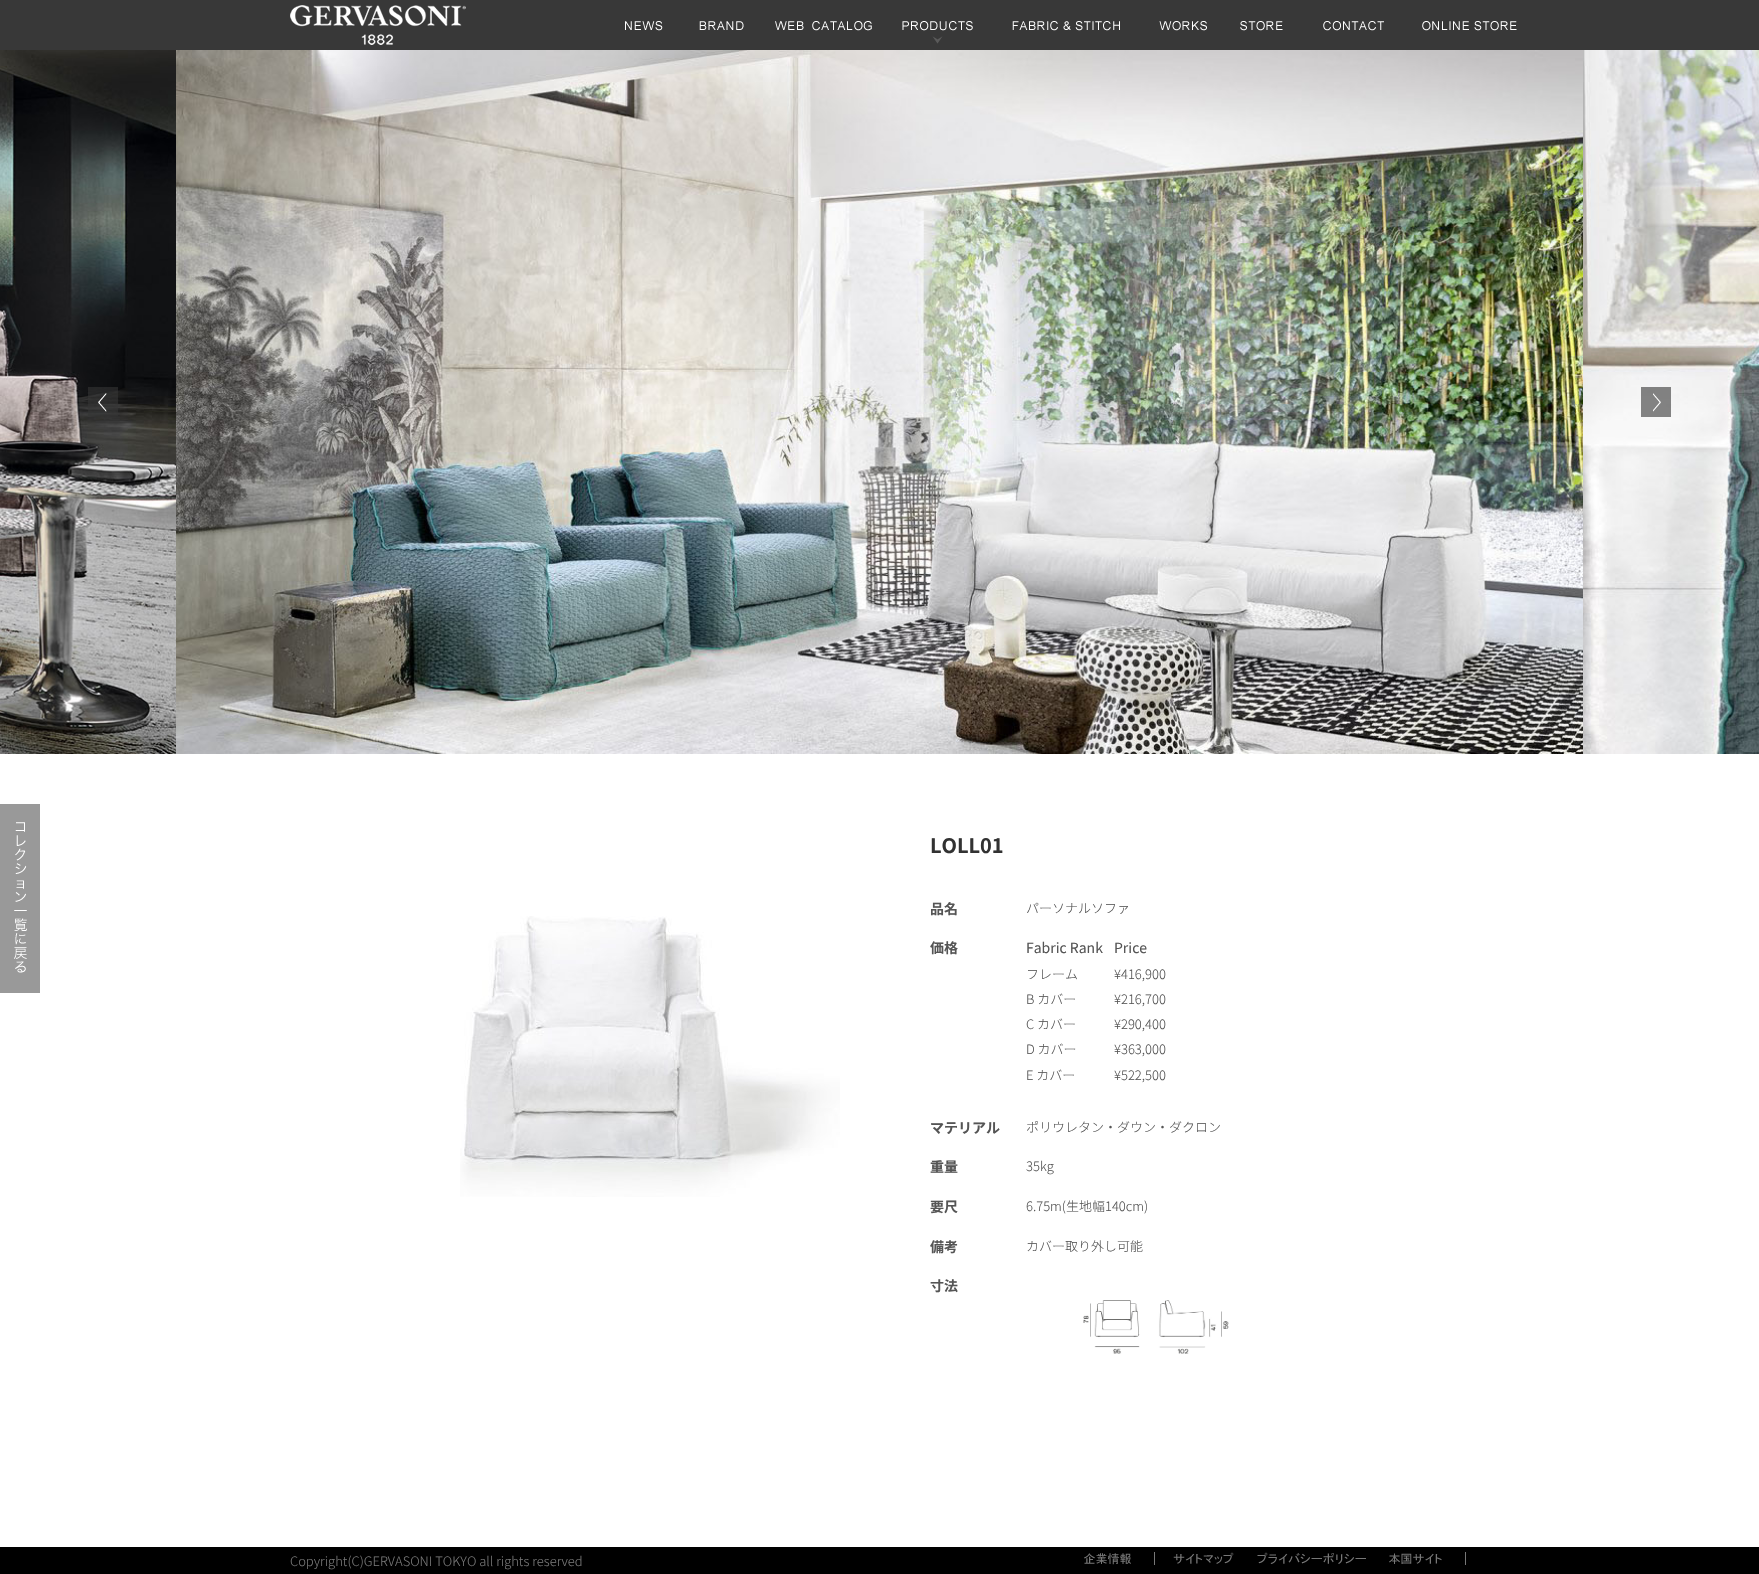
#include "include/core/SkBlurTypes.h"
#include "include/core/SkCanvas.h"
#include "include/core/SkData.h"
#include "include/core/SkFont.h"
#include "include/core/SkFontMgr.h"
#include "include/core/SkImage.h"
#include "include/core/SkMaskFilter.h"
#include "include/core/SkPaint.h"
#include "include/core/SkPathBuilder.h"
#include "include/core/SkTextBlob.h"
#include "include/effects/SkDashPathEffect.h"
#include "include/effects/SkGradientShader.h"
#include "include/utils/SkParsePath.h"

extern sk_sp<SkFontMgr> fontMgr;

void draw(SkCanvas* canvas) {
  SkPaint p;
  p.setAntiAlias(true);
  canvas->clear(SK_ColorWHITE);
  p.setColor(SkColorSetRGB(56, 56, 56));
  canvas->drawRect(SkRect::MakeLTRB(0, 0, 1759, 50), p);
  canvas->drawImageRect(SkImages::DeferredFromEncodedData(SkData::MakeFromFileName("images/1.png")), SkRect::MakeLTRB(290, 5, 466, 45), SkSamplingOptions());
  canvas->drawImageRect(SkImages::DeferredFromEncodedData(SkData::MakeFromFileName("images/2.png")), SkRect::MakeLTRB(625, 21, 663, 31), SkSamplingOptions());
  canvas->drawImageRect(SkImages::DeferredFromEncodedData(SkData::MakeFromFileName("images/3.png")), SkRect::MakeLTRB(699, 21, 744, 30), SkSamplingOptions());
  canvas->drawImageRect(SkImages::DeferredFromEncodedData(SkData::MakeFromFileName("images/4.png")), SkRect::MakeLTRB(775, 21, 872, 31), SkSamplingOptions());
  canvas->drawImageRect(SkImages::DeferredFromEncodedData(SkData::MakeFromFileName("images/5.png")), SkRect::MakeLTRB(902, 21, 973, 44), SkSamplingOptions());
  canvas->drawImageRect(SkImages::DeferredFromEncodedData(SkData::MakeFromFileName("images/6.png")), SkRect::MakeLTRB(1012, 21, 1120, 31), SkSamplingOptions());
  canvas->drawImageRect(SkImages::DeferredFromEncodedData(SkData::MakeFromFileName("images/7.png")), SkRect::MakeLTRB(1159, 21, 1207, 31), SkSamplingOptions());
  canvas->drawImageRect(SkImages::DeferredFromEncodedData(SkData::MakeFromFileName("images/8.png")), SkRect::MakeLTRB(1240, 21, 1283, 31), SkSamplingOptions());
  canvas->drawImageRect(SkImages::DeferredFromEncodedData(SkData::MakeFromFileName("images/9.png")), SkRect::MakeLTRB(1323, 21, 1384, 31), SkSamplingOptions());
  canvas->drawImageRect(SkImages::DeferredFromEncodedData(SkData::MakeFromFileName("images/10.png")), SkRect::MakeLTRB(1422, 21, 1517, 31), SkSamplingOptions());
  canvas->drawImageRect(SkImages::DeferredFromEncodedData(SkData::MakeFromFileName("images/11.png")), SkRect::MakeLTRB(0, 50, 176, 754), SkSamplingOptions());
  canvas->drawImageRect(SkImages::DeferredFromEncodedData(SkData::MakeFromFileName("images/12.png")), SkRect::MakeLTRB(176, 50, 1583, 754), SkSamplingOptions());
  canvas->drawImageRect(SkImages::DeferredFromEncodedData(SkData::MakeFromFileName("images/13.png")), SkRect::MakeLTRB(1583, 50, 1759, 754), SkSamplingOptions());
  canvas->drawImageRect(SkImages::DeferredFromEncodedData(SkData::MakeFromFileName("images/14.png")), SkRect::MakeLTRB(88, 387, 118, 416), SkSamplingOptions());
  canvas->drawImageRect(SkImages::DeferredFromEncodedData(SkData::MakeFromFileName("images/15.png")), SkRect::MakeLTRB(1641, 387, 1671, 417), SkSamplingOptions());
  canvas->drawImageRect(SkImages::DeferredFromEncodedData(SkData::MakeFromFileName("images/16.png")), SkRect::MakeLTRB(0, 804, 40, 993), SkSamplingOptions());
  canvas->drawImageRect(SkImages::DeferredFromEncodedData(SkData::MakeFromFileName("images/17.png")), SkRect::MakeLTRB(460, 916, 840, 1197), SkSamplingOptions());
  canvas->drawImageRect(SkImages::DeferredFromEncodedData(SkData::MakeFromFileName("images/18.png")), SkRect::MakeLTRB(1083, 1300, 1229, 1354), SkSamplingOptions());
  p.setColor(SK_ColorBLACK);
  canvas->drawRect(SkRect::MakeLTRB(0, 1547, 1759, 1574), p);
  p.setColor(SkColorSetRGB(119, 119, 119));
  canvas->drawRect(SkRect::MakeLTRB(1154, 1552, 1155, 1565), p);
  canvas->drawImageRect(SkImages::DeferredFromEncodedData(SkData::MakeFromFileName("images/19.png")), SkRect::MakeLTRB(1084, 1553, 1131, 1565), SkSamplingOptions());
  canvas->drawImageRect(SkImages::DeferredFromEncodedData(SkData::MakeFromFileName("images/20.png")), SkRect::MakeLTRB(1173, 1552, 1234, 1564), SkSamplingOptions());
  canvas->drawImageRect(SkImages::DeferredFromEncodedData(SkData::MakeFromFileName("images/21.png")), SkRect::MakeLTRB(1257, 1552, 1366, 1564), SkSamplingOptions());
  canvas->drawRect(SkRect::MakeLTRB(1465, 1552, 1466, 1565), p);
  canvas->drawImageRect(SkImages::DeferredFromEncodedData(SkData::MakeFromFileName("images/22.png")), SkRect::MakeLTRB(1389, 1553, 1442, 1564), SkSamplingOptions());
  SkFont font1(fontMgr->matchFamilyStyle("Noto Sans JP", SkFontStyle::Bold()), 20);
  font1.setSubpixel(true);
  p.setColor(SkColorSetRGB(50, 50, 50));
  canvas->drawString("LOLL01", 930, 853, font1, p);
  SkFont font2(fontMgr->matchFamilyStyle("Noto Sans JP", SkFontStyle::Bold()), 14);
  font2.setSubpixel(true);
  p.setColor(SkColorSetRGB(85, 85, 85));
  canvas->drawString("品名", 930, 914, font2, p);
  SkFont font3(fontMgr->matchFamilyStyle("Noto Sans JP", SkFontStyle(300, SkFontStyle::kNormal_Width, SkFontStyle::kUpright_Slant)), 13);
  font3.setSubpixel(true);
  canvas->drawString("パーソナルソファ", 1026, 913, font3, p);
  canvas->drawString("価格", 930, 953, font2, p);
  SkFont font4(fontMgr->matchFamilyStyle("Noto Sans JP", SkFontStyle::Normal()), 14);
  font4.setSubpixel(true);
  canvas->drawString("Fabric Rank", 1026, 953, font4, p);
  canvas->drawString("Price", 1114, 953, font4, p);
  canvas->drawString("フレーム", 1026, 979, font3, p);
  canvas->drawString("¥416,900", 1114, 979, font3, p);
  canvas->drawString("B カバー", 1026, 1004, font3, p);
  canvas->drawString("¥216,700", 1114, 1004, font3, p);
  canvas->drawString("C カバー", 1026, 1029, font3, p);
  canvas->drawString("¥290,400", 1114, 1029, font3, p);
  canvas->drawString("D カバー", 1026, 1054, font3, p);
  canvas->drawString("¥363,000", 1114, 1054, font3, p);
  canvas->drawString("E カバー", 1026, 1080, font3, p);
  canvas->drawString("¥522,500", 1114, 1080, font3, p);
  canvas->drawString("マテリアル", 930, 1133, font2, p);
  canvas->drawString("ポリウレタン・ダウン・ダクロン", 1026, 1132, font3, p);
  canvas->drawString("重量", 930, 1172, font2, p);
  canvas->drawString("35kg", 1026, 1171, font3, p);
  canvas->drawString("要尺", 930, 1212, font2, p);
  canvas->drawString("6.75m(生地幅140cm)", 1026, 1211, font3, p);
  canvas->drawString("備考", 930, 1252, font2, p);
  canvas->drawString("カバー取り外し可能", 1026, 1251, font3, p);
  canvas->drawString("寸法", 930, 1291, font2, p);
  p.setColor(SkColorSetRGB(119, 119, 119));
  canvas->drawString("Copyright(C)GERVASONI TOKYO all rights reserved", 290, 1566, font3, p);
}
